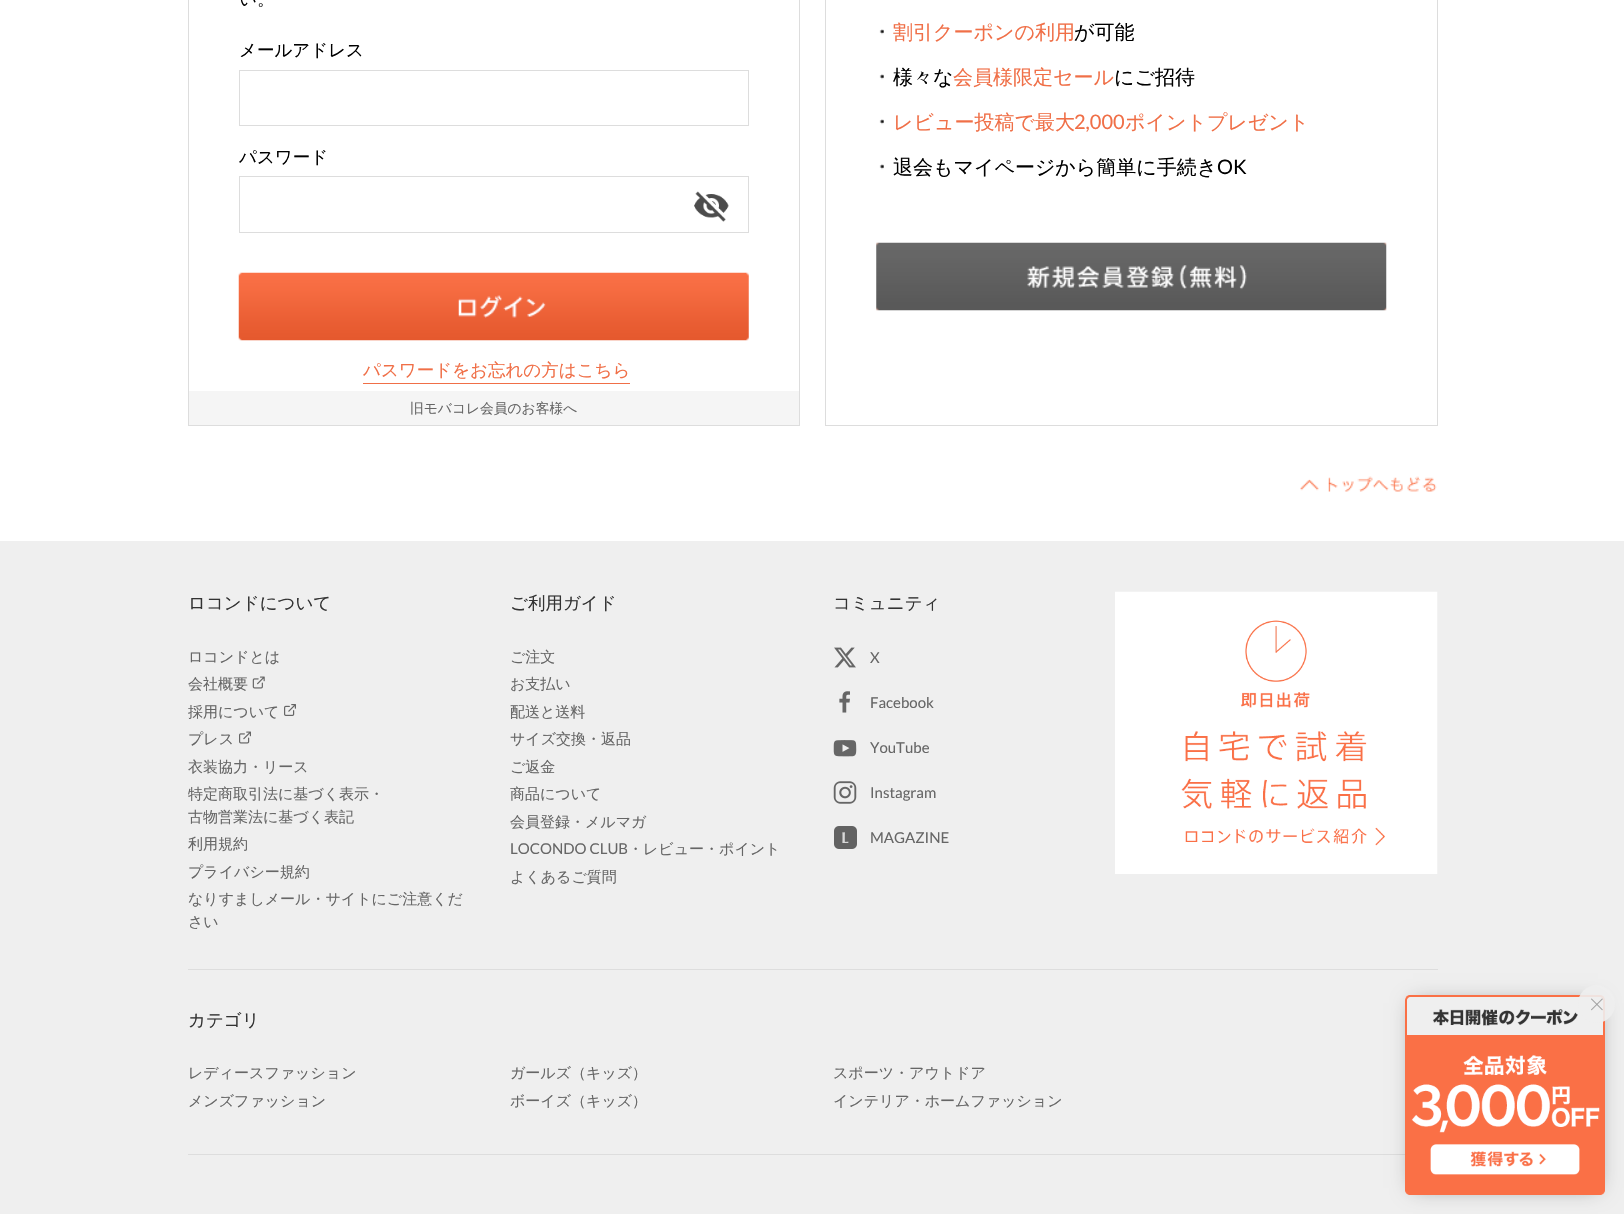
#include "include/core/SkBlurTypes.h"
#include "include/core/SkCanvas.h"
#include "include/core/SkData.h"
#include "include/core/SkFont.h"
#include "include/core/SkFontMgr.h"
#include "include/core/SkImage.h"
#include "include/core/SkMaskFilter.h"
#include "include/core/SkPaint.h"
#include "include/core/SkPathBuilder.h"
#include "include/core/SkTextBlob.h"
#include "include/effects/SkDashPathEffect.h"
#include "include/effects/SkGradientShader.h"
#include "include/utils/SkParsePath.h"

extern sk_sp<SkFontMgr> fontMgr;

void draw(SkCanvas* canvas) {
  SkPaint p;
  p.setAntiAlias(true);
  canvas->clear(SK_ColorWHITE);
  p.setStyle(SkPaint::kStroke_Style);
  p.setStrokeWidth(1);
  p.setColor(SkColorSetRGB(221, 221, 221));
  canvas->drawRect(SkRect::MakeLTRB(188.5f, -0.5f, 799.5f, 425.5f), p);
  canvas->drawRect(SkRect::MakeLTRB(239.5f, 70.5f, 748.5f, 125.5f), p);
  canvas->drawRect(SkRect::MakeLTRB(239.5f, 176.5f, 748.5f, 232.5f), p);
  canvas->drawImageRect(SkImages::DeferredFromEncodedData(SkData::MakeFromFileName("images/1.png")), SkRect::MakeLTRB(694, 191, 729, 222), SkSamplingOptions());
  canvas->drawImageRect(SkImages::DeferredFromEncodedData(SkData::MakeFromFileName("images/2.png")), SkRect::MakeLTRB(238, 272, 749, 341), SkSamplingOptions());
  p.setStyle(SkPaint::kFill_Style);
  p.setColor(SkColorSetRGB(240, 111, 71));
  canvas->drawRect(SkRect::MakeLTRB(363, 383, 630, 384), p);
  p.setColor(SkColorSetRGB(245, 245, 245));
  canvas->drawRect(SkRect::MakeLTRB(189, 391, 799, 425), p);
  p.setStyle(SkPaint::kStroke_Style);
  p.setColor(SkColorSetRGB(221, 221, 221));
  canvas->drawRect(SkRect::MakeLTRB(825.5f, -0.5f, 1437.5f, 425.5f), p);
  canvas->drawImageRect(SkImages::DeferredFromEncodedData(SkData::MakeFromFileName("images/3.png")), SkRect::MakeLTRB(879, 29, 884, 35), SkSamplingOptions());
  canvas->drawImageRect(SkImages::DeferredFromEncodedData(SkData::MakeFromFileName("images/3.png")), SkRect::MakeLTRB(879, 74, 884, 80), SkSamplingOptions());
  canvas->drawImageRect(SkImages::DeferredFromEncodedData(SkData::MakeFromFileName("images/3.png")), SkRect::MakeLTRB(879, 119, 884, 125), SkSamplingOptions());
  canvas->drawImageRect(SkImages::DeferredFromEncodedData(SkData::MakeFromFileName("images/3.png")), SkRect::MakeLTRB(879, 164, 884, 170), SkSamplingOptions());
  canvas->drawImageRect(SkImages::DeferredFromEncodedData(SkData::MakeFromFileName("images/4.png")), SkRect::MakeLTRB(876, 242, 1387, 311), SkSamplingOptions());
  canvas->drawImageRect(SkImages::DeferredFromEncodedData(SkData::MakeFromFileName("images/5.png")), SkRect::MakeLTRB(1300, 476, 1437, 492), SkSamplingOptions());
  p.setStyle(SkPaint::kFill_Style);
  p.setColor(SkColorSetRGB(239, 239, 239));
  canvas->drawRect(SkRect::MakeLTRB(0, 541, 1624, 1214), p);
  p.setColor(SkColorSetRGB(221, 221, 221));
  canvas->drawRect(SkRect::MakeLTRB(188, 969, 1438, 970), p);
  canvas->drawImageRect(SkImages::DeferredFromEncodedData(SkData::MakeFromFileName("images/6.png")), SkRect::MakeLTRB(252, 676, 265, 689), SkSamplingOptions());
  canvas->drawImageRect(SkImages::DeferredFromEncodedData(SkData::MakeFromFileName("images/7.png")), SkRect::MakeLTRB(284, 704, 296, 716), SkSamplingOptions());
  canvas->drawImageRect(SkImages::DeferredFromEncodedData(SkData::MakeFromFileName("images/8.png")), SkRect::MakeLTRB(239, 731, 251, 744), SkSamplingOptions());
  canvas->drawImageRect(SkImages::DeferredFromEncodedData(SkData::MakeFromFileName("images/9.png")), SkRect::MakeLTRB(834, 647, 856, 668), SkSamplingOptions());
  canvas->drawImageRect(SkImages::DeferredFromEncodedData(SkData::MakeFromFileName("images/10.png")), SkRect::MakeLTRB(839, 691, 850, 713), SkSamplingOptions());
  canvas->drawImageRect(SkImages::DeferredFromEncodedData(SkData::MakeFromFileName("images/11.png")), SkRect::MakeLTRB(833, 740, 857, 757), SkSamplingOptions());
  canvas->drawImageRect(SkImages::DeferredFromEncodedData(SkData::MakeFromFileName("images/12.png")), SkRect::MakeLTRB(833, 781, 857, 804), SkSamplingOptions());
  canvas->drawImageRect(SkImages::DeferredFromEncodedData(SkData::MakeFromFileName("images/13.png")), SkRect::MakeLTRB(834, 826, 857, 849), SkSamplingOptions());
  canvas->drawImageRect(SkImages::DeferredFromEncodedData(SkData::MakeFromFileName("images/14.png")), SkRect::MakeLTRB(1115, 591, 1438, 874), SkSamplingOptions());
  canvas->drawRect(SkRect::MakeLTRB(188, 1154, 1405, 1155), p);
  p.setColor(SkColorSetARGB(102, 0, 0, 0));
  p.setMaskFilter(SkMaskFilter::MakeBlur(kNormal_SkBlurStyle, 10));
  canvas->drawRect(SkRect::MakeLTRB(1413, 1003, 1598, 1188), p);
  p.setMaskFilter(nullptr);
  canvas->drawImageRect(SkImages::DeferredFromEncodedData(SkData::MakeFromFileName("images/16.png")), SkRect::MakeLTRB(1405, 995, 1605, 1195), SkSamplingOptions());
  p.setColor(SkColorSetARGB(230, 238, 238, 238));
  canvas->drawRoundRect(SkRect::MakeLTRB(1578, 985, 1615, 1023), 18.5f, 18.5f, p);
  canvas->drawImageRect(SkImages::DeferredFromEncodedData(SkData::MakeFromFileName("images/15.png")), SkRect::MakeLTRB(1591, 998, 1603, 1011), SkSamplingOptions());
  SkFont font1(fontMgr->matchFamilyStyle("WenQuanYi Zen Hei", SkFontStyle(500, SkFontStyle::kNormal_Width, SkFontStyle::kUpright_Slant)), 17.5f);
  font1.setSubpixel(true);
  p.setColor(SK_ColorBLACK);
  canvas->drawString("い。", 239, 5, font1, p);
  canvas->drawString("メールアドレス", 239, 56, font1, p);
  canvas->drawString("パスワード", 239, 163, font1, p);
  p.setColor(SkColorSetRGB(240, 111, 71));
  canvas->drawString("パスワードをお忘れの方はこちら", 363, 376, font1, p);
  SkFont font2(fontMgr->matchFamilyStyle("WenQuanYi Zen Hei", SkFontStyle(500, SkFontStyle::kNormal_Width, SkFontStyle::kUpright_Slant)), 13.75f);
  font2.setSubpixel(true);
  p.setColor(SkColorSetRGB(102, 102, 102));
  canvas->drawString("旧モバコレ会員のお客様へ", 410, 413, font2, p);
  SkFont font3(fontMgr->matchFamilyStyle("WenQuanYi Zen Hei", SkFontStyle(500, SkFontStyle::kNormal_Width, SkFontStyle::kUpright_Slant)), 20);
  font3.setSubpixel(true);
  p.setColor(SkColorSetRGB(240, 111, 71));
  canvas->drawString("割引クーポンの利用", 893, 39, font3, p);
  p.setColor(SK_ColorBLACK);
  canvas->drawString("が可能", 1074, 39, font3, p);
  canvas->drawString("様々な", 893, 84, font3, p);
  p.setColor(SkColorSetRGB(240, 111, 71));
  canvas->drawString("会員様限定セール", 953, 84, font3, p);
  p.setColor(SK_ColorBLACK);
  canvas->drawString("にご招待", 1114, 84, font3, p);
  p.setColor(SkColorSetRGB(240, 111, 71));
  canvas->drawString("レビュー投稿で最大", 893, 129, font3, p);
  SkFont font4(fontMgr->matchFamilyStyle("Lato", SkFontStyle::Normal()), 20);
  font4.setSubpixel(true);
  canvas->drawString("2,000", 1074, 129, font4, p);
  canvas->drawString("ポイントプレゼント", 1125, 129, font3, p);
  p.setColor(SK_ColorBLACK);
  canvas->drawString("退会もマイページから簡単に手続き", 893, 174, font3, p);
  canvas->drawString("OK", 1217, 174, font4, p);
  p.setColor(SkColorSetRGB(51, 51, 51));
  canvas->drawString("ロコンドについて", 188, 609, font1, p);
  SkFont font5(fontMgr->matchFamilyStyle("WenQuanYi Zen Hei", SkFontStyle(500, SkFontStyle::kNormal_Width, SkFontStyle::kUpright_Slant)), 15);
  font5.setSubpixel(true);
  p.setColor(SkColorSetRGB(102, 102, 102));
  canvas->drawString("ロコンドとは", 188, 662, font5, p);
  canvas->drawString("会社概要", 188, 689, font5, p);
  canvas->save();
  canvas->clipRect(SkRect::MakeLTRB(188, 591, 1438, 969));
  canvas->drawString("採用について", 188, 717, font5, p);
  canvas->restore();
  canvas->drawString("プレス", 188, 744, font5, p);
  canvas->drawString("衣装協力・リース", 188, 772, font5, p);
  canvas->save();
  canvas->clipRect(SkRect::MakeLTRB(188, 591, 1438, 969));
  canvas->drawString("特定商取引法に基づく表示・", 188, 799, font5, p);
  canvas->restore();
  canvas->drawString("古物営業法に基づく表記", 188, 822, font5, p);
  canvas->drawString("利用規約", 188, 849, font5, p);
  canvas->drawString("プライバシー規約", 188, 877, font5, p);
  canvas->drawString("なりすましメール・サイトにご注意くだ", 188, 904, font5, p);
  canvas->drawString("さい", 188, 927, font5, p);
  p.setColor(SkColorSetRGB(51, 51, 51));
  canvas->drawString("ご利用ガイド", 510, 609, font1, p);
  p.setColor(SkColorSetRGB(102, 102, 102));
  canvas->drawString("ご注文", 510, 662, font5, p);
  canvas->drawString("お支払い", 510, 689, font5, p);
  canvas->drawString("配送と送料", 510, 717, font5, p);
  canvas->drawString("サイズ交換・返品", 510, 744, font5, p);
  canvas->drawString("ご返金", 510, 772, font5, p);
  canvas->drawString("商品について", 510, 799, font5, p);
  canvas->drawString("会員登録・メルマガ", 510, 827, font5, p);
  SkFont font6(fontMgr->matchFamilyStyle("Lato", SkFontStyle::Normal()), 15);
  font6.setSubpixel(true);
  canvas->drawString("LOCONDO CLUB", 510, 854, font6, p);
  canvas->drawString("・レビュー・ポイント", 628, 854, font5, p);
  canvas->drawString("よくあるご質問", 510, 882, font5, p);
  p.setColor(SkColorSetRGB(51, 51, 51));
  canvas->drawString("コミュニティ", 833, 609, font1, p);
  p.setColor(SkColorSetRGB(102, 102, 102));
  canvas->drawString("X", 870, 663, font6, p);
  canvas->drawString("Facebook", 870, 708, font6, p);
  canvas->drawString("YouTube", 870, 753, font6, p);
  canvas->drawString("Instagram", 870, 798, font6, p);
  canvas->drawString("MAGAZINE", 870, 843, font6, p);
  p.setColor(SkColorSetRGB(51, 51, 51));
  canvas->drawString("カテゴリ", 188, 1026, font1, p);
  p.setColor(SkColorSetRGB(102, 102, 102));
  canvas->drawString("レディースファッション", 188, 1078, font5, p);
  canvas->drawString("メンズファッション", 188, 1106, font5, p);
  canvas->drawString("ガールズ（キッズ）", 510, 1078, font5, p);
  canvas->drawString("ボーイズ（キッズ）", 510, 1106, font5, p);
  canvas->drawString("スポーツ・アウトドア", 833, 1078, font5, p);
  canvas->drawString("インテリア・ホームファッション", 833, 1106, font5, p);
}
